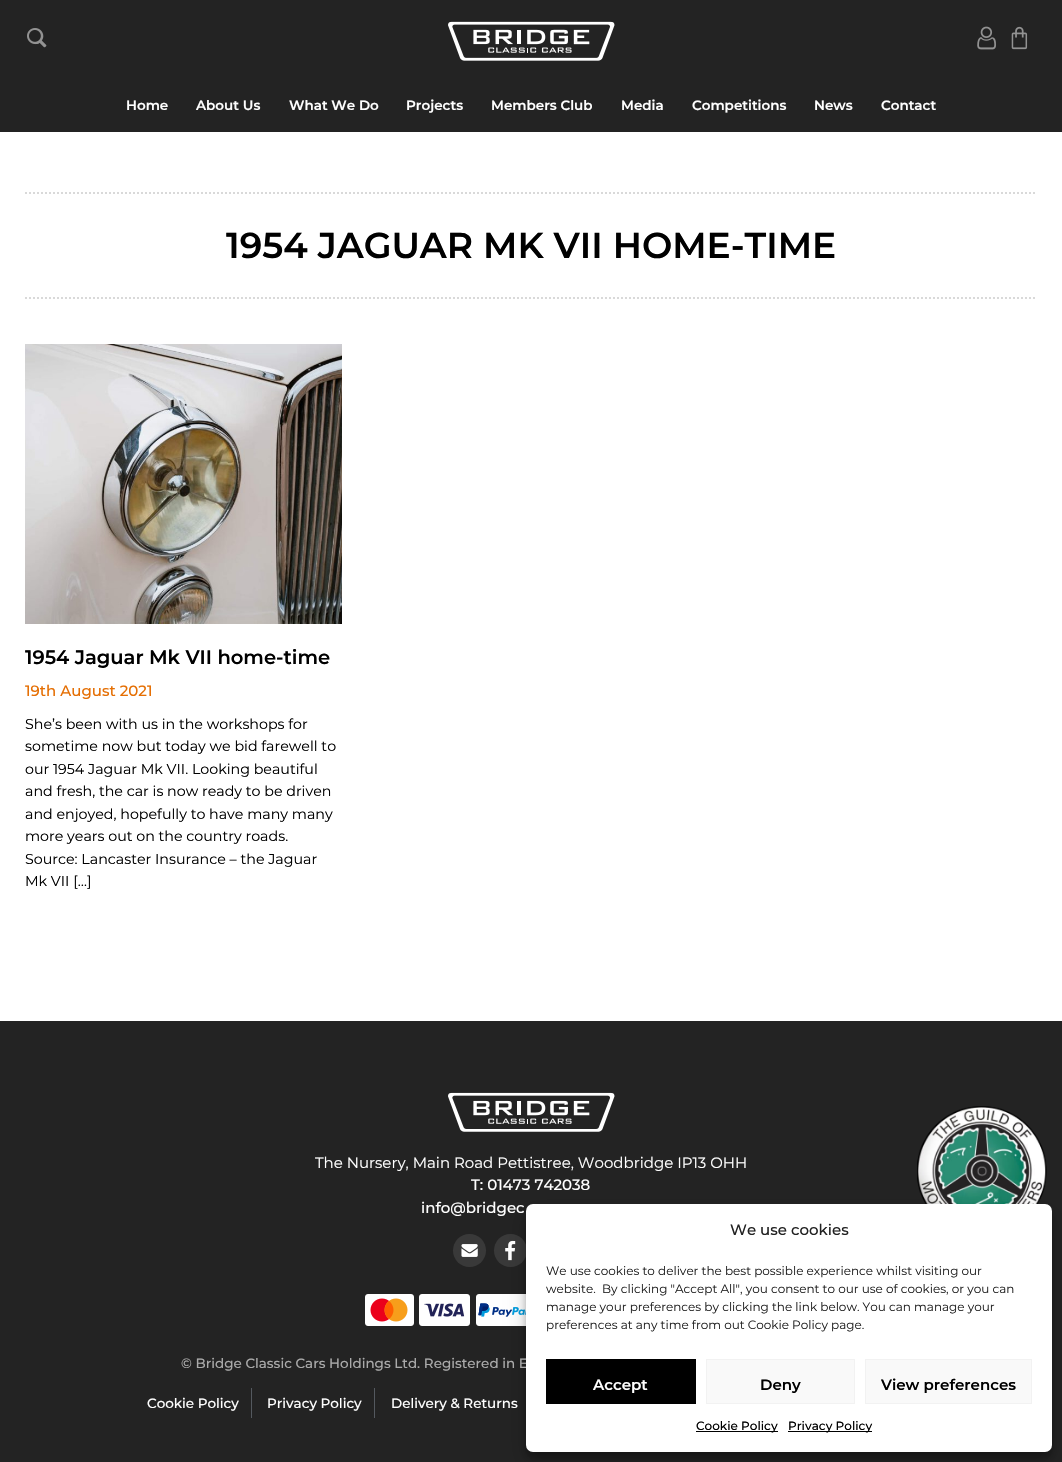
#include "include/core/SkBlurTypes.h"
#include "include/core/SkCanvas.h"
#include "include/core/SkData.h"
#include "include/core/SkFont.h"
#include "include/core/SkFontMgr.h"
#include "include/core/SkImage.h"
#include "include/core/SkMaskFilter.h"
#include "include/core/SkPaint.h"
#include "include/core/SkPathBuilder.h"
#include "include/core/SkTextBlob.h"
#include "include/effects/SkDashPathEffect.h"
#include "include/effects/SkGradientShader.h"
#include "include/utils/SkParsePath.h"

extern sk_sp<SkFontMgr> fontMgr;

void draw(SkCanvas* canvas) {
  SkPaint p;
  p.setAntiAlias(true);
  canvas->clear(SK_ColorWHITE);
  p.setColor(SkColorSetRGB(35, 35, 35));
  canvas->drawRect(SkRect::MakeLTRB(0, 0, 1062, 132), p);
  canvas->drawImageRect(SkImages::DeferredFromEncodedData(SkData::MakeFromFileName("images/1.png")), SkRect::MakeLTRB(27, 28, 47, 48), SkSamplingOptions());
  canvas->drawImageRect(SkImages::DeferredFromEncodedData(SkData::MakeFromFileName("images/2.png")), SkRect::MakeLTRB(448, 21, 615, 61), SkSamplingOptions());
  canvas->drawImageRect(SkImages::DeferredFromEncodedData(SkData::MakeFromFileName("images/3.png")), SkRect::MakeLTRB(977, 26, 996, 50), SkSamplingOptions());
  canvas->drawImageRect(SkImages::DeferredFromEncodedData(SkData::MakeFromFileName("images/4.png")), SkRect::MakeLTRB(1011, 26, 1028, 50), SkSamplingOptions());
  p.setStyle(SkPaint::kStroke_Style);
  p.setStrokeWidth(2);
  p.setColor(SkColorSetRGB(217, 217, 217));
  p.setPathEffect(SkDashPathEffect::Make({{2, 2}}, 0));
  canvas->drawPath(SkPathBuilder().moveTo(25, 193).lineTo(1037, 193).detach(), p);
  p.setPathEffect(nullptr);
  p.setPathEffect(SkDashPathEffect::Make({{2, 2}}, 0));
  canvas->drawPath(SkPathBuilder().moveTo(25, 298).lineTo(1037, 298).detach(), p);
  p.setPathEffect(nullptr);
  canvas->drawImageRect(SkImages::DeferredFromEncodedData(SkData::MakeFromFileName("images/5.png")), SkRect::MakeLTRB(25, 344, 342, 624), SkSamplingOptions());
  p.setStyle(SkPaint::kFill_Style);
  p.setColor(SkColorSetRGB(35, 35, 35));
  canvas->drawRect(SkRect::MakeLTRB(0, 1021, 1062, 1462), p);
  canvas->drawImageRect(SkImages::DeferredFromEncodedData(SkData::MakeFromFileName("images/6.png")), SkRect::MakeLTRB(448, 1092, 615, 1132), SkSamplingOptions());
  canvas->drawImageRect(SkImages::DeferredFromEncodedData(SkData::MakeFromFileName("images/7.png")), SkRect::MakeLTRB(917, 1106, 1047, 1204), SkSamplingOptions());
  p.setColor(SkColorSetRGB(57, 57, 57));
  canvas->drawCircle(469.5f, 1250.5f, 16.5f, p);
  canvas->drawImageRect(SkImages::DeferredFromEncodedData(SkData::MakeFromFileName("images/8.png")), SkRect::MakeLTRB(461, 1244, 478, 1257), SkSamplingOptions());
  canvas->drawCircle(510.5f, 1250.5f, 16.5f, p);
  canvas->drawImageRect(SkImages::DeferredFromEncodedData(SkData::MakeFromFileName("images/9.png")), SkRect::MakeLTRB(505, 1240, 516, 1261), SkSamplingOptions());
  canvas->drawImageRect(SkImages::DeferredFromEncodedData(SkData::MakeFromFileName("images/10.png")), SkRect::MakeLTRB(365, 1294, 526, 1326), SkSamplingOptions());
  p.setColor(SkColorSetRGB(84, 89, 95));
  canvas->drawRect(SkRect::MakeLTRB(251, 1388, 252, 1418), p);
  canvas->drawRect(SkRect::MakeLTRB(374, 1388, 375, 1418), p);
  p.setColor(SkColorSetARGB(59, 0, 0, 0));
  p.setMaskFilter(SkMaskFilter::MakeBlur(kNormal_SkBlurStyle, 3));
  canvas->drawRoundRect(SkRect::MakeLTRB(526, 1210, 1052, 1458), 7, 7, p);
  p.setMaskFilter(nullptr);
  p.setColor(SkColorSetARGB(48, 0, 0, 0));
  p.setMaskFilter(SkMaskFilter::MakeBlur(kNormal_SkBlurStyle, 10));
  canvas->drawRoundRect(SkRect::MakeLTRB(526, 1214, 1052, 1462), 7, 7, p);
  p.setMaskFilter(nullptr);
  SkFont font1(fontMgr->matchFamilyStyle("Montserrat", SkFontStyle(600, SkFontStyle::kNormal_Width, SkFontStyle::kUpright_Slant)), 13.5f);
  font1.setSubpixel(true);
  p.setColor(SK_ColorWHITE);
  canvas->drawString("Home", 126, 110, font1, p);
  canvas->drawString("About Us", 196, 110, font1, p);
  canvas->drawString("What We Do", 289, 110, font1, p);
  canvas->drawString("Projects", 406, 110, font1, p);
  canvas->drawString("Members Club", 491, 110, font1, p);
  canvas->drawString("Media", 621, 110, font1, p);
  canvas->drawString("Competitions", 692, 110, font1, p);
  canvas->drawString("News", 814, 110, font1, p);
  canvas->drawString("Contact", 881, 110, font1, p);
  SkFont font2(fontMgr->matchFamilyStyle("Montserrat", SkFontStyle(600, SkFontStyle::kNormal_Width, SkFontStyle::kUpright_Slant)), 36);
  font2.setSubpixel(true);
  p.setColor(SK_ColorBLACK);
  canvas->drawString("1954 JAGUAR MK VII HOME-TIME", 226, 258, font2, p);
  SkFont font3(fontMgr->matchFamilyStyle("Montserrat", SkFontStyle(600, SkFontStyle::kNormal_Width, SkFontStyle::kUpright_Slant)), 19.5f);
  font3.setSubpixel(true);
  canvas->drawString("1954 Jaguar Mk VII home-time", 25, 664, font3, p);
  SkFont font4(fontMgr->matchFamilyStyle("Montserrat", SkFontStyle(500, SkFontStyle::kNormal_Width, SkFontStyle::kUpright_Slant)), 15);
  font4.setSubpixel(true);
  p.setColor(SkColorSetRGB(229, 110, 2));
  canvas->drawString("19th August 2021", 25, 696, font4, p);
  SkFont font5(fontMgr->matchFamilyStyle("Montserrat", SkFontStyle::Normal()), 14.25f);
  font5.setSubpixel(true);
  p.setColor(SK_ColorBLACK);
  canvas->drawString("She’s been with us in the workshops for", 25, 729, font5, p);
  canvas->drawString("sometime now but today we bid farewell to", 25, 751, font5, p);
  canvas->drawString("our 1954 Jaguar Mk VII. Looking beautiful", 25, 774, font5, p);
  canvas->drawString("and fresh, the car is now ready to be driven", 25, 796, font5, p);
  canvas->drawString("and enjoyed, hopefully to have many many", 25, 819, font5, p);
  canvas->drawString("more years out on the country roads.", 25, 841, font5, p);
  canvas->drawString("Source: Lancaster Insurance – the Jaguar", 25, 864, font5, p);
  canvas->drawString("Mk VII […]", 25, 886, font5, p);
  SkFont font6(fontMgr->matchFamilyStyle("Montserrat", SkFontStyle::Normal()), 15);
  font6.setSubpixel(true);
  p.setColor(SK_ColorWHITE);
  canvas->drawString("The Nursery, Main Road Pettistree, Woodbridge IP13 OHH", 315, 1168, font6, p);
  canvas->drawString("T: 01473 742038", 471, 1190, font4, p);
  canvas->drawString("info@bridgec", 421, 1213, font4, p);
  SkFont font7(fontMgr->matchFamilyStyle("Montserrat", SkFontStyle(500, SkFontStyle::kNormal_Width, SkFontStyle::kUpright_Slant)), 13.5f);
  font7.setSubpixel(true);
  p.setColor(SkColorSetRGB(170, 170, 170));
  canvas->drawString("© Bridge Classic Cars Holdings Ltd. Registered in E", 181, 1368, font7, p);
  p.setColor(SK_ColorWHITE);
  canvas->drawString("Cookie Policy", 147, 1408, font7, p);
  canvas->drawString("Privacy Policy", 267, 1408, font7, p);
  canvas->drawString("Delivery & Returns", 391, 1408, font7, p);
  canvas->drawRoundRect(SkRect::MakeLTRB(526, 1204, 1052, 1452), 7, 7, p);
  p.setColor(SkColorSetRGB(34, 34, 34));
  canvas->drawString("We use cookies", 730, 1235, font4, p);
  SkFont font8(fontMgr->matchFamilyStyle("Montserrat", SkFontStyle::Normal()), 12);
  font8.setSubpixel(true);
  canvas->drawString("We use cookies to deliver the best possible experience whilst visiting our", 546, 1275, font8, p);
  canvas->drawString("website.  By clicking \"Accept All\", you consent to our use of cookies, or you can", 546, 1293, font8, p);
  canvas->drawString("manage your preferences by clicking the link below. You can manage your", 546, 1311, font8, p);
  canvas->drawString("preferences at any time from out Cookie Policy page.", 546, 1329, font8, p);
  p.setColor(SK_ColorBLACK);
  canvas->drawRect(SkRect::MakeLTRB(546, 1359, 696, 1404), p);
  SkFont font9(fontMgr->matchFamilyStyle("Montserrat", SkFontStyle(600, SkFontStyle::kNormal_Width, SkFontStyle::kUpright_Slant)), 15);
  font9.setSubpixel(true);
  p.setColor(SK_ColorWHITE);
  canvas->drawString("Accept", 593, 1390, font9, p);
  p.setColor(SkColorSetRGB(249, 249, 249));
  canvas->drawRect(SkRect::MakeLTRB(706.5f, 1359.5f, 854.5f, 1403.5f), p);
  p.setStyle(SkPaint::kStroke_Style);
  p.setStrokeWidth(1);
  p.setColor(SkColorSetRGB(242, 242, 242));
  canvas->drawRect(SkRect::MakeLTRB(706.5f, 1359.5f, 854.5f, 1403.5f), p);
  p.setStyle(SkPaint::kFill_Style);
  p.setColor(SK_ColorBLACK);
  canvas->drawString("Deny", 760, 1390, font9, p);
  p.setColor(SkColorSetRGB(249, 249, 249));
  canvas->drawRect(SkRect::MakeLTRB(865.5f, 1359.5f, 1031.5f, 1403.5f), p);
  p.setStyle(SkPaint::kStroke_Style);
  p.setColor(SkColorSetRGB(242, 242, 242));
  canvas->drawRect(SkRect::MakeLTRB(865.5f, 1359.5f, 1031.5f, 1403.5f), p);
  p.setStyle(SkPaint::kFill_Style);
  p.setColor(SK_ColorBLACK);
  canvas->drawString("View preferences", 881, 1390, font9, p);
  canvas->drawRect(SkRect::MakeLTRB(696, 1431, 778, 1432), p);
  SkFont font10(fontMgr->matchFamilyStyle("Montserrat", SkFontStyle(500, SkFontStyle::kNormal_Width, SkFontStyle::kUpright_Slant)), 12);
  font10.setSubpixel(true);
  canvas->drawString("Cookie Policy", 696, 1430, font10, p);
  canvas->drawRect(SkRect::MakeLTRB(788, 1431, 872, 1432), p);
  canvas->drawString("Privacy Policy", 788, 1430, font10, p);
}
